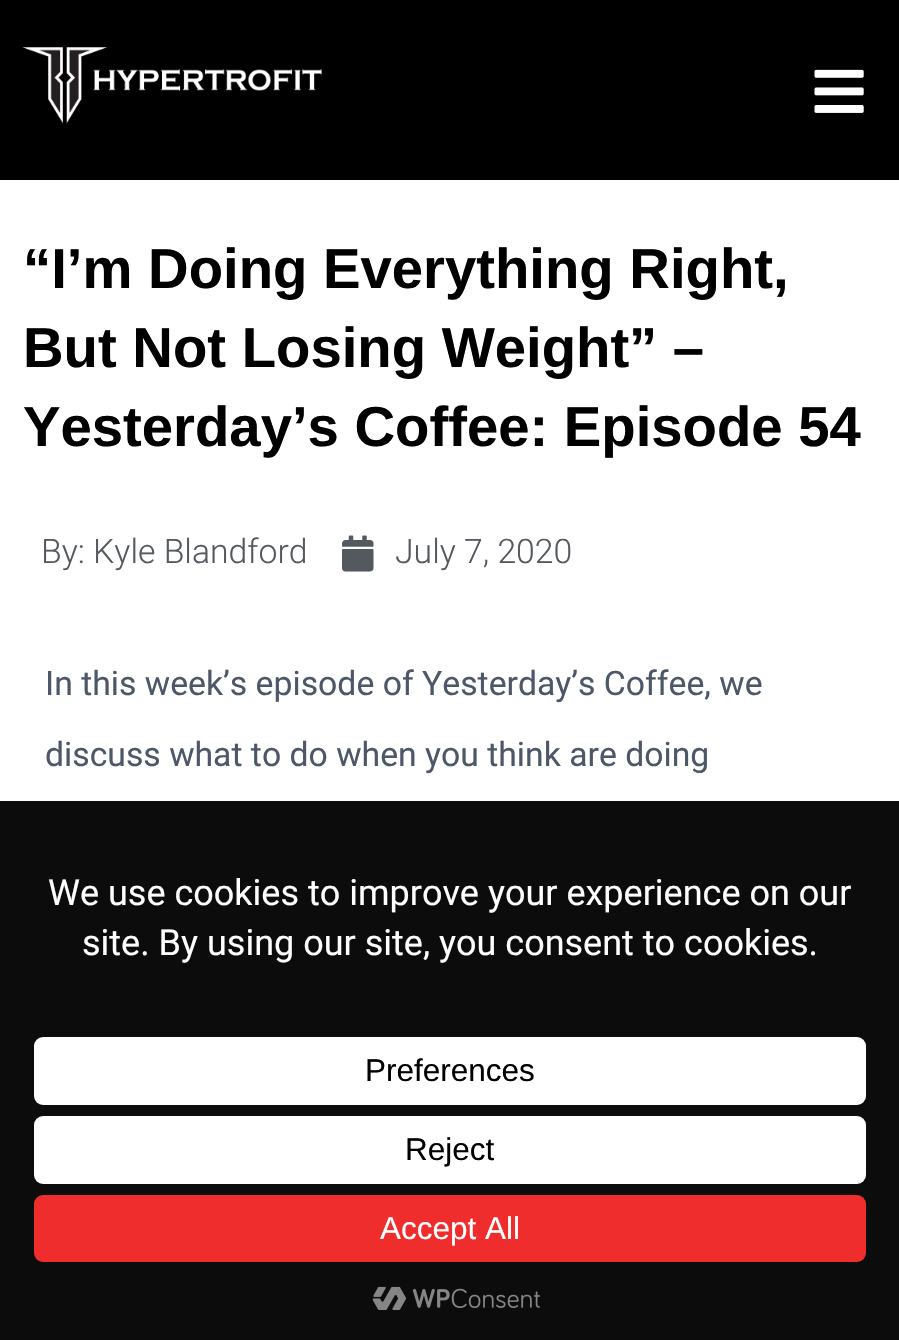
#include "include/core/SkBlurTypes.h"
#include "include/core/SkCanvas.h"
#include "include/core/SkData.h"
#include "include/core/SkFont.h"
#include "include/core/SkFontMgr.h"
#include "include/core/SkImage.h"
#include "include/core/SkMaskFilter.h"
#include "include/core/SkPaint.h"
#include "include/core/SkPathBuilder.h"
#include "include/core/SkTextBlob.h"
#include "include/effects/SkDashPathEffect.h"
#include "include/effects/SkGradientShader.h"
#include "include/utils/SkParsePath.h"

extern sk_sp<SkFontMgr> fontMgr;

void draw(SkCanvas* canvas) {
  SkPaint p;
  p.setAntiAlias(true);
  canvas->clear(SK_ColorWHITE);
  p.setColor(SK_ColorBLACK);
  canvas->drawRect(SkRect::MakeLTRB(0, 0, 899, 180), p);
  canvas->drawImageRect(SkImages::DeferredFromEncodedData(SkData::MakeFromFileName("images/1.png")), SkRect::MakeLTRB(22, 47, 322, 123), SkSamplingOptions());
  canvas->drawImageRect(SkImages::DeferredFromEncodedData(SkData::MakeFromFileName("images/2.png")), SkRect::MakeLTRB(814, 69, 864, 113), SkSamplingOptions());
  canvas->drawImageRect(SkImages::DeferredFromEncodedData(SkData::MakeFromFileName("images/3.png")), SkRect::MakeLTRB(342, 535, 374, 572), SkSamplingOptions());
  p.setColor(SkColorSetRGB(12, 12, 12));
  canvas->drawRect(SkRect::MakeLTRB(0, 801, 899, 1340), p);
  p.setColor(SK_ColorWHITE);
  canvas->drawRoundRect(SkRect::MakeLTRB(34, 1037, 866, 1105), 9, 9, p);
  canvas->drawRoundRect(SkRect::MakeLTRB(34, 1116, 866, 1184), 9, 9, p);
  p.setColor(SkColorSetRGB(240, 45, 45));
  canvas->drawRoundRect(SkRect::MakeLTRB(34, 1195, 866, 1262), 9, 9, p);
  canvas->drawImageRect(SkImages::DeferredFromEncodedData(SkData::MakeFromFileName("images/4.png")), SkRect::MakeLTRB(372, 1286, 540, 1310), SkSamplingOptions());
  SkFont font1(fontMgr->matchFamilyStyle("Liberation Sans", SkFontStyle::Bold()), 56.25f);
  font1.setSubpixel(true);
  p.setColor(SK_ColorBLACK);
  canvas->drawString("“I’m Doing Everything Right,", 23, 288, font1, p);
  canvas->drawString("But Not Losing Weight” –", 23, 367, font1, p);
  canvas->drawString("Yesterday’s Coffee: Episode 54", 23, 446, font1, p);
  SkFont font2(fontMgr->matchFamilyStyle("Roboto", SkFontStyle(300, SkFontStyle::kNormal_Width, SkFontStyle::kUpright_Slant)), 33.75f);
  font2.setSubpixel(true);
  p.setColor(SkColorSetRGB(84, 89, 95));
  canvas->drawString("By: Kyle Blandford", 41, 563, font2, p);
  canvas->drawString("July 7, 2020", 395, 563, font2, p);
  SkFont font3(fontMgr->matchFamilyStyle("Roboto", SkFontStyle::Normal()), 33.75f);
  font3.setSubpixel(true);
  p.setColor(SkColorSetRGB(78, 87, 104));
  canvas->drawString("In this week’s episode of Yesterday’s Coffee, we", 45, 695, font3, p);
  canvas->drawString("discuss what to do when you think are doing", 45, 766, font3, p);
  SkFont font4(fontMgr->matchFamilyStyle("Roboto", SkFontStyle::Normal()), 36);
  font4.setSubpixel(true);
  p.setColor(SK_ColorWHITE);
  canvas->drawString("We use cookies to improve your experience on our", 48, 905, font4, p);
  canvas->drawString("site. By using our site, you consent to cookies.", 82, 955, font4, p);
  SkFont font5(fontMgr->matchFamilyStyle("Liberation Sans", SkFontStyle::Normal()), 31.5f);
  font5.setSubpixel(true);
  p.setColor(SK_ColorBLACK);
  canvas->drawString("Preferences", 365, 1081, font5, p);
  canvas->drawString("Reject", 405, 1160, font5, p);
  p.setColor(SK_ColorWHITE);
  canvas->drawString("Accept All", 380, 1239, font5, p);
}
